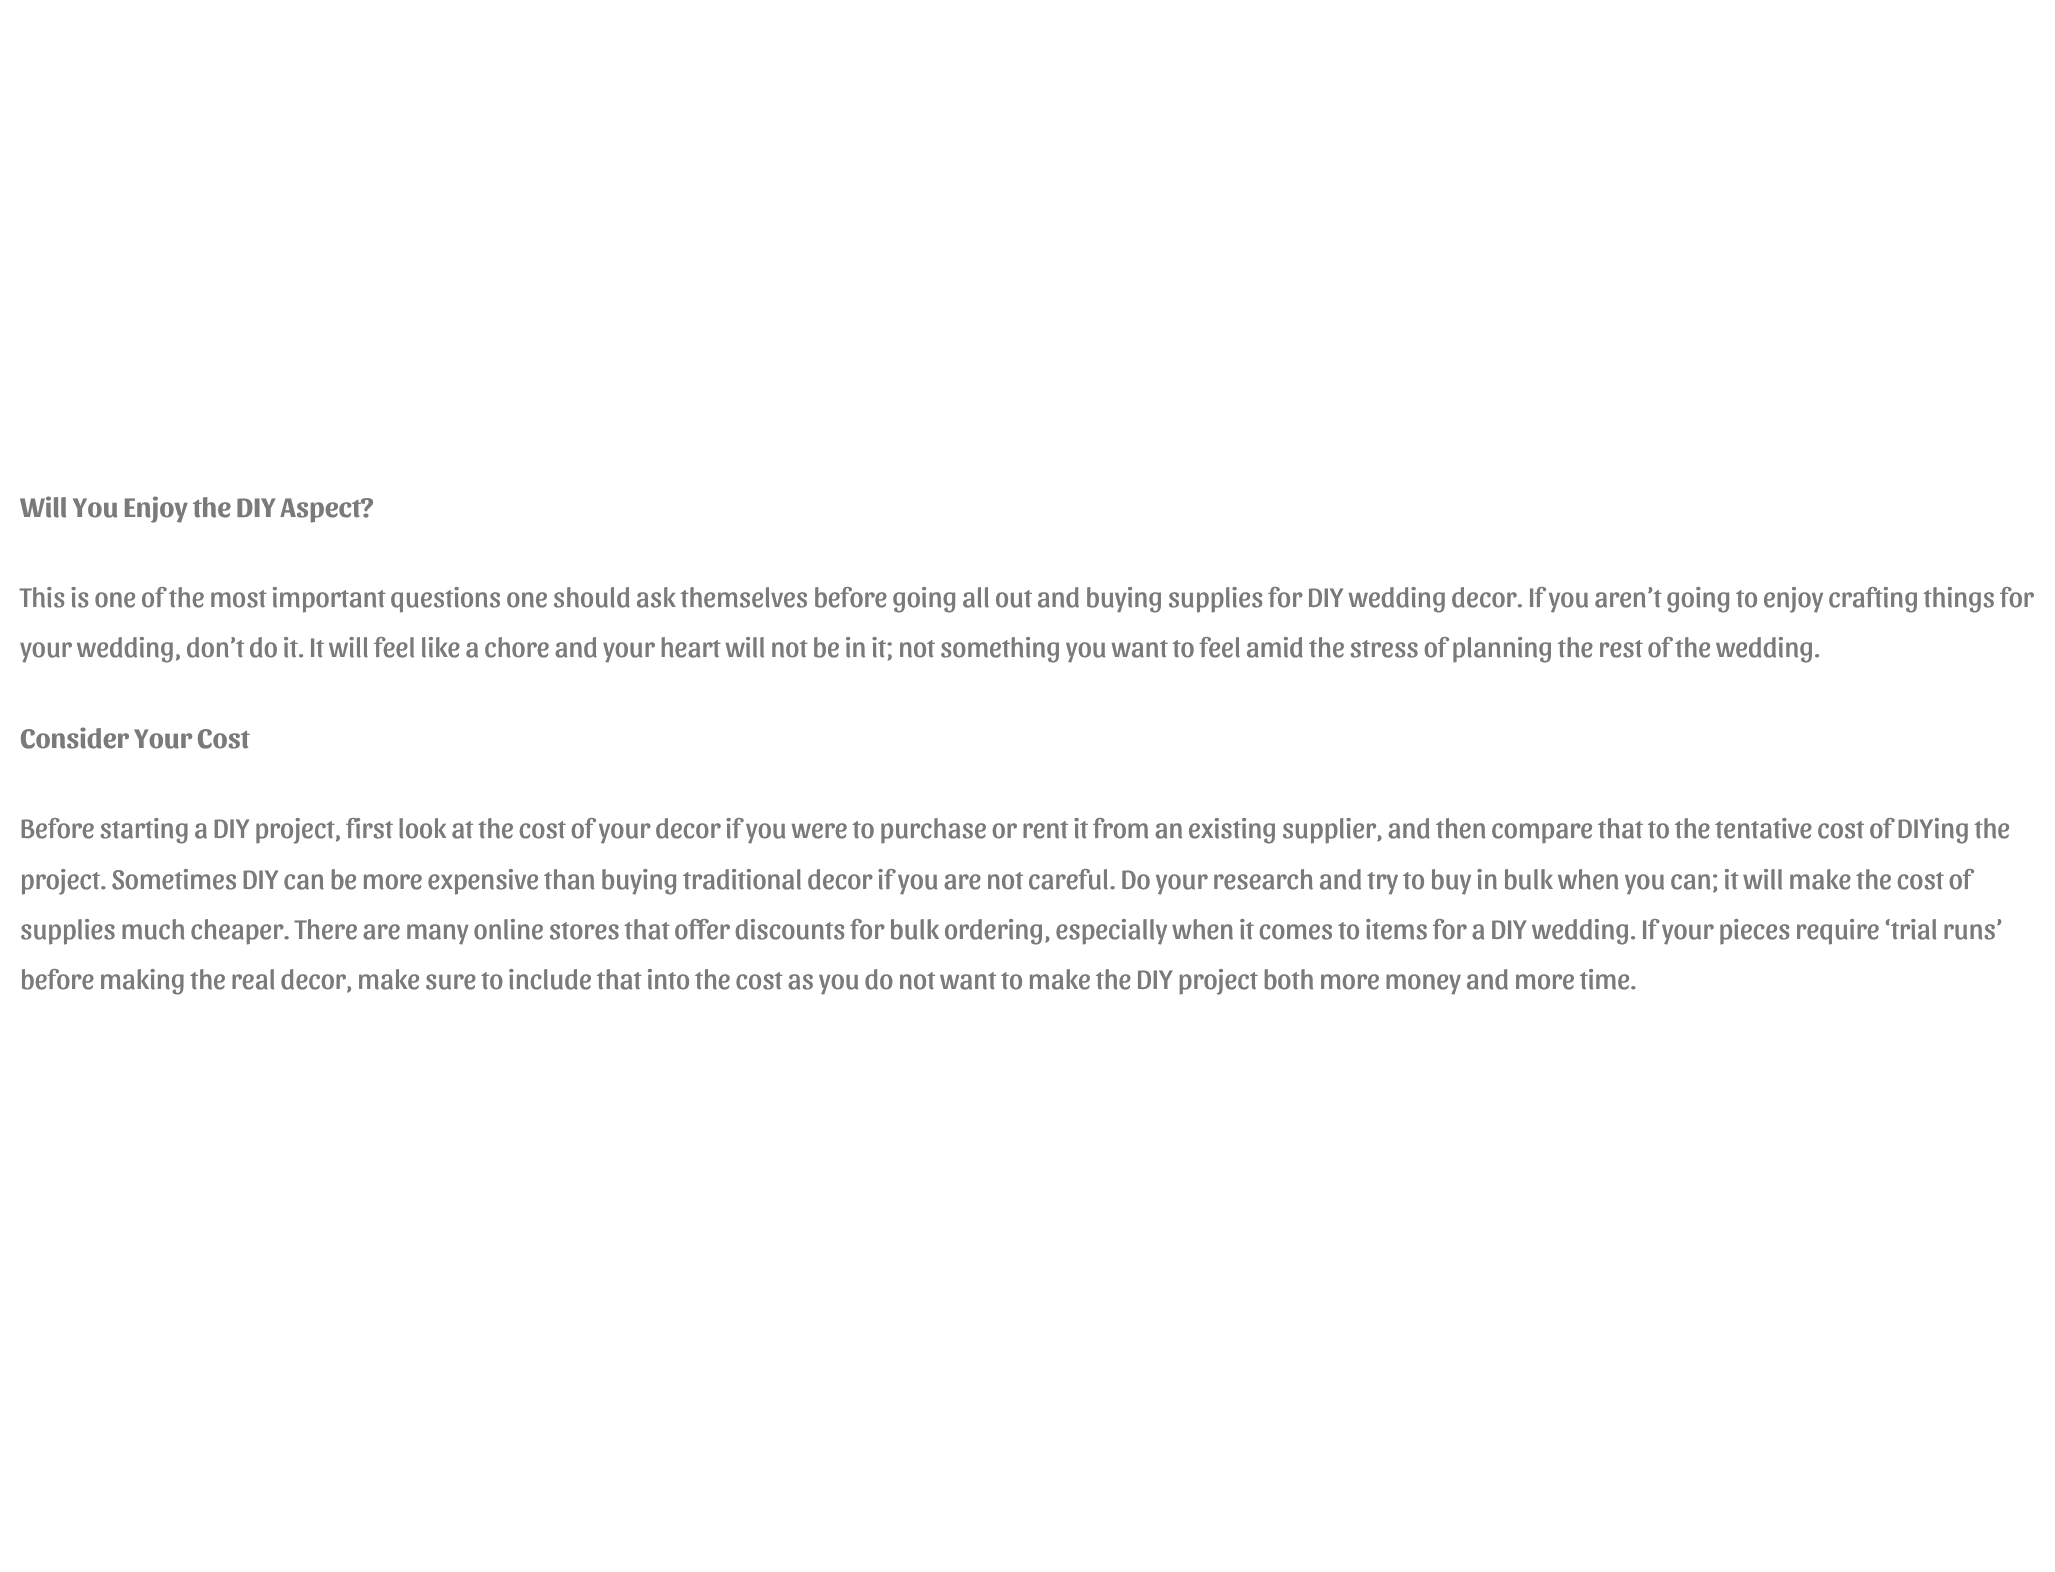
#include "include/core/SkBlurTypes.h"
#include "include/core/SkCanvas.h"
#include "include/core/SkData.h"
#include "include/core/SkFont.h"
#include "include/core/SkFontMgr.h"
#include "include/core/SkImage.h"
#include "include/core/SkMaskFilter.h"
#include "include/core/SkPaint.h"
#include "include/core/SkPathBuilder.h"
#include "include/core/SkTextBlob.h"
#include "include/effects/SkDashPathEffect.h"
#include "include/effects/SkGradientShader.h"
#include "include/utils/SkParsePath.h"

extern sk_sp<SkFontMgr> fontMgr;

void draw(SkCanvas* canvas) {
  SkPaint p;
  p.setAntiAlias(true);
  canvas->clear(SK_ColorWHITE);
  SkFont font1(fontMgr->matchFamilyStyle("Sansita", SkFontStyle::Bold()), 28);
  font1.setSubpixel(true);
  p.setColor(SkColorSetRGB(122, 122, 122));
  canvas->drawString("Will You Enjoy the DIY Aspect?", 20, 517, font1, p);
  SkFont font2(fontMgr->matchFamilyStyle("Sansita", SkFontStyle::Normal()), 28);
  font2.setSubpixel(true);
  canvas->drawString("This is one of the most important questions one should ask themselves before going all out and buying supplies for DIY wedding decor. If you aren’t going to enjoy crafting things for", 20, 607, font2, p);
  canvas->drawString("your wedding, don’t do it. It will feel like a chore and your heart will not be in it; not something you want to feel amid the stress of planning the rest of the wedding.", 20, 657, font2, p);
  canvas->drawString("Consider Your Cost", 20, 748, font1, p);
  canvas->drawString("Before starting a DIY project, first look at the cost of your decor if you were to purchase or rent it from an existing supplier, and then compare that to the tentative cost of DIYing the", 20, 838, font2, p);
  canvas->drawString("project. Sometimes DIY can be more expensive than buying traditional decor if you are not careful. Do your research and try to buy in bulk when you can; it will make the cost of", 20, 889, font2, p);
  canvas->drawString("supplies much cheaper. There are many online stores that offer discounts for bulk ordering, especially when it comes to items for a DIY wedding. If your pieces require ‘trial runs’", 20, 939, font2, p);
  canvas->drawString("before making the real decor, make sure to include that into the cost as you do not want to make the DIY project both more money and more time.", 20, 989, font2, p);
}
